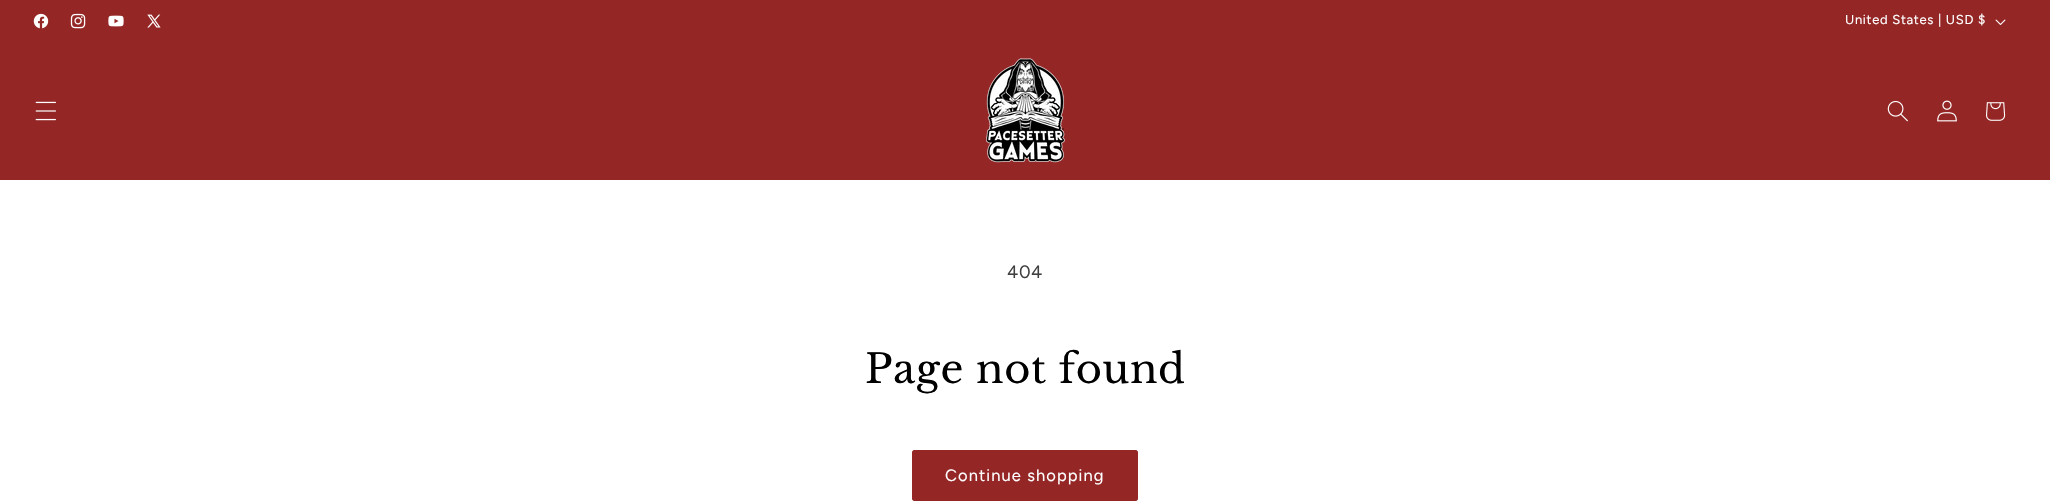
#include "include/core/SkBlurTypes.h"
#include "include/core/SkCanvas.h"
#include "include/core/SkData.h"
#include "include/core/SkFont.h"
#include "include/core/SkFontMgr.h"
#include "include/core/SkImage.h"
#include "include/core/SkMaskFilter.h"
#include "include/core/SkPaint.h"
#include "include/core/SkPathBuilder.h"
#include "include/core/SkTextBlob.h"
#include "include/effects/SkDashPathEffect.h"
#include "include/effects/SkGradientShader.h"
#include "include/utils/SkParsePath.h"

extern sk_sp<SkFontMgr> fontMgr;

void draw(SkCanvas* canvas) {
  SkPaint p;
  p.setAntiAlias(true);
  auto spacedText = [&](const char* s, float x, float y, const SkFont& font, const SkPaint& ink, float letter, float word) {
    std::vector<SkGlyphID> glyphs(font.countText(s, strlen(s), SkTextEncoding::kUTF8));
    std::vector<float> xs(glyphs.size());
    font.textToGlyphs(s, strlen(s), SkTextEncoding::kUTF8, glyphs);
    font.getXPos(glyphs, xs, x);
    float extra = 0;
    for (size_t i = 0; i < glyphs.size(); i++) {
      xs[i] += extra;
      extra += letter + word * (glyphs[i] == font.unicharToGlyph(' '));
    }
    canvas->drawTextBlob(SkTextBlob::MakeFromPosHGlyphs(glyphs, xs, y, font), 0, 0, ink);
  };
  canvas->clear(SK_ColorWHITE);
  p.setColor(SkColorSetRGB(148, 38, 38));
  canvas->drawRect(SkRect::MakeLTRB(0, 0, 2050, 180), p);
  canvas->drawImageRect(SkImages::DeferredFromEncodedData(SkData::MakeFromFileName("images/1.png")), SkRect::MakeLTRB(35, 101, 56, 121), SkSamplingOptions());
  canvas->drawImageRect(SkImages::DeferredFromEncodedData(SkData::MakeFromFileName("images/2.png")), SkRect::MakeLTRB(986, 58, 1065, 163), SkSamplingOptions());
  canvas->drawImageRect(SkImages::DeferredFromEncodedData(SkData::MakeFromFileName("images/3.png")), SkRect::MakeLTRB(1887, 100, 1908, 122), SkSamplingOptions());
  canvas->drawImageRect(SkImages::DeferredFromEncodedData(SkData::MakeFromFileName("images/4.png")), SkRect::MakeLTRB(1937, 100, 1957, 122), SkSamplingOptions());
  canvas->drawImageRect(SkImages::DeferredFromEncodedData(SkData::MakeFromFileName("images/5.png")), SkRect::MakeLTRB(1986, 102, 2006, 121), SkSamplingOptions());
  canvas->drawImageRect(SkImages::DeferredFromEncodedData(SkData::MakeFromFileName("images/6.png")), SkRect::MakeLTRB(33, 13, 49, 29), SkSamplingOptions());
  canvas->drawImageRect(SkImages::DeferredFromEncodedData(SkData::MakeFromFileName("images/7.png")), SkRect::MakeLTRB(70, 13, 86, 29), SkSamplingOptions());
  canvas->drawImageRect(SkImages::DeferredFromEncodedData(SkData::MakeFromFileName("images/8.png")), SkRect::MakeLTRB(108, 15, 124, 27), SkSamplingOptions());
  canvas->drawImageRect(SkImages::DeferredFromEncodedData(SkData::MakeFromFileName("images/9.png")), SkRect::MakeLTRB(147, 14, 161, 28), SkSamplingOptions());
  canvas->drawImageRect(SkImages::DeferredFromEncodedData(SkData::MakeFromFileName("images/10.png")), SkRect::MakeLTRB(1995, 19, 2006, 25), SkSamplingOptions());
  canvas->drawRoundRect(SkRect::MakeLTRB(912, 450, 1138, 501), 3, 3, p);
  p.setStyle(SkPaint::kStroke_Style);
  p.setStrokeWidth(1);
  canvas->drawRoundRect(SkRect::MakeLTRB(912.5f, 450.5f, 1137.5f, 500.5f), 2.5f, 2.5f, p);
  SkFont font1(fontMgr->matchFamilyStyle("Figtree", SkFontStyle::Normal()), 13);
  font1.setSubpixel(true);
  p.setStyle(SkPaint::kFill_Style);
  p.setColor(SK_ColorWHITE);
  spacedText("United States | USD $", 1845, 24, font1, p, 0.7f, 0);
  SkFont font2(fontMgr->matchFamilyStyle("Figtree", SkFontStyle::Normal()), 18);
  font2.setSubpixel(true);
  p.setColor(SkColorSetRGB(64, 64, 64));
  spacedText("404", 1007, 278, font2, p, 0.7f, 0);
  SkFont font3(fontMgr->matchFamilyStyle("Libre Baskerville", SkFontStyle::Normal()), 40);
  font3.setSubpixel(true);
  p.setColor(SK_ColorBLACK);
  spacedText("Page not found", 865, 383, font3, p, 0.6f, 0);
  SkFont font4(fontMgr->matchFamilyStyle("Figtree", SkFontStyle::Normal()), 16.5f);
  font4.setSubpixel(true);
  p.setColor(SK_ColorWHITE);
  spacedText("Continue shopping", 945, 481, font4, p, 1.1f, 0);
}
